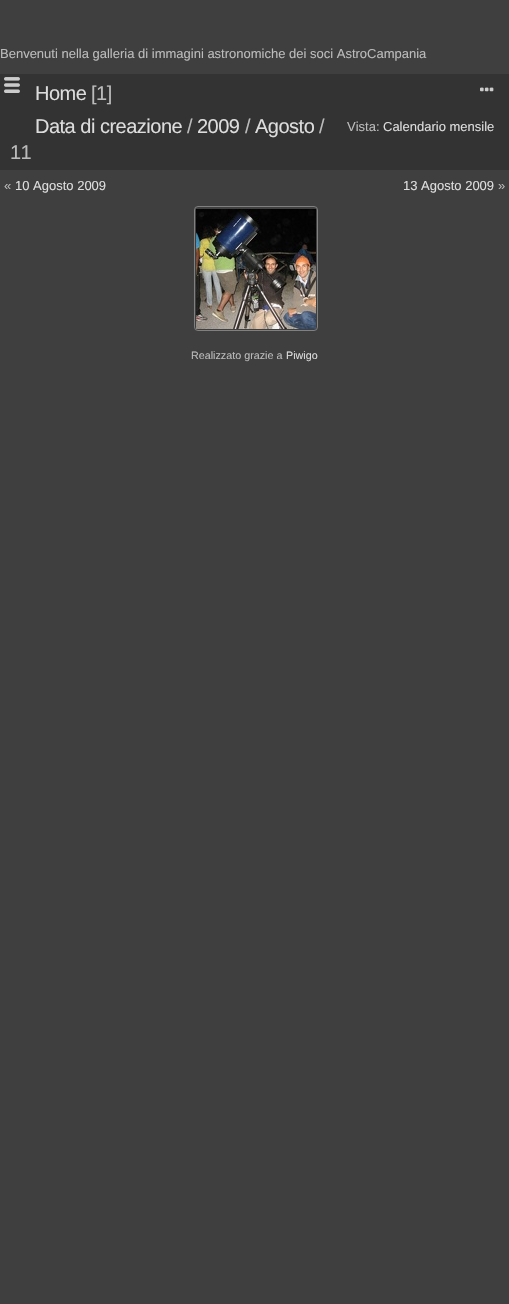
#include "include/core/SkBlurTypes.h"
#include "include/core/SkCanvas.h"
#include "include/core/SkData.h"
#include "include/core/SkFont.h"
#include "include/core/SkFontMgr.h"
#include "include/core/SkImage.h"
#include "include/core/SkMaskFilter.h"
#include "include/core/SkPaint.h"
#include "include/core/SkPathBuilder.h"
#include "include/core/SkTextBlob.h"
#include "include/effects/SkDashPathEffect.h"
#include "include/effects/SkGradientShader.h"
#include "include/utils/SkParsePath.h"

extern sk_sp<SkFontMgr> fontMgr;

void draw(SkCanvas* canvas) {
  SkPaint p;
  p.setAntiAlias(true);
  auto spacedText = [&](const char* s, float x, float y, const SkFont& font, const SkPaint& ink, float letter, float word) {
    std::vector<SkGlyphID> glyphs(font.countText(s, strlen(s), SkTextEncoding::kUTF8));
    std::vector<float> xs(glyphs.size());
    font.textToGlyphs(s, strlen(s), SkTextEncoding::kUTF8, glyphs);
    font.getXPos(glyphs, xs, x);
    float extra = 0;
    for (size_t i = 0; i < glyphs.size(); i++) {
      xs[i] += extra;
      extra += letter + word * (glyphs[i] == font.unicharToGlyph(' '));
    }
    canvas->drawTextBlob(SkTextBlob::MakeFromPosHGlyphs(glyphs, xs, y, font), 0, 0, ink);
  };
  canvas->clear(SkColorSetRGB(63, 63, 63));
  p.setColor(SkColorSetRGB(51, 51, 51));
  canvas->drawRect(SkRect::MakeLTRB(0, 74, 509, 170), p);
  canvas->drawImageRect(SkImages::DeferredFromEncodedData(SkData::MakeFromFileName("images/1.png")), SkRect::MakeLTRB(4, 77, 20, 93), SkSamplingOptions());
  canvas->drawImageRect(SkImages::DeferredFromEncodedData(SkData::MakeFromFileName("images/2.png")), SkRect::MakeLTRB(480, 87, 494, 92), SkSamplingOptions());
  p.setStyle(SkPaint::kStroke_Style);
  p.setStrokeWidth(1);
  p.setColor(SkColorSetRGB(128, 128, 128));
  canvas->drawRoundRect(SkRect::MakeLTRB(194.5f, 206.5f, 317.5f, 330.5f), 3.5f, 3.5f, p);
  canvas->drawImageRect(SkImages::DeferredFromEncodedData(SkData::MakeFromFileName("images/3.png")), SkRect::MakeLTRB(196, 209, 316, 329), SkSamplingOptions());
  SkFont font1(fontMgr->matchFamilyStyle("Liberation Sans", SkFontStyle::Normal()), 13);
  font1.setSubpixel(true);
  p.setStyle(SkPaint::kFill_Style);
  p.setColor(SkColorSetRGB(187, 187, 187));
  canvas->drawString("Benvenuti nella galleria di immagini astronomiche dei soci AstroCampania", 0, 58, font1, p);
  SkFont font2(fontMgr->matchFamilyStyle("Liberation Sans", SkFontStyle::Normal()), 20);
  font2.setSubpixel(true);
  p.setColor(SkColorSetRGB(221, 221, 221));
  spacedText("Home", 35, 100, font2, p, -0.5f, 0);
  p.setColor(SkColorSetRGB(187, 187, 187));
  spacedText("[1]", 91, 100, font2, p, -0.5f, 0);
  p.setColor(SkColorSetRGB(221, 221, 221));
  spacedText("Data di creazione", 35, 133, font2, p, -0.5f, 0);
  p.setColor(SkColorSetRGB(187, 187, 187));
  spacedText("/", 187, 133, font2, p, -0.5f, 0);
  p.setColor(SkColorSetRGB(221, 221, 221));
  spacedText("2009", 197, 133, font2, p, -0.5f, 0);
  p.setColor(SkColorSetRGB(187, 187, 187));
  spacedText("/", 245, 133, font2, p, -0.5f, 0);
  p.setColor(SkColorSetRGB(221, 221, 221));
  spacedText("Agosto", 255, 133, font2, p, -0.5f, 0);
  p.setColor(SkColorSetRGB(187, 187, 187));
  spacedText("/", 319, 133, font2, p, -0.5f, 0);
  spacedText("11", 10, 159, font2, p, -0.5f, 0);
  canvas->drawString("Vista:", 347, 131, font1, p);
  p.setColor(SkColorSetRGB(221, 221, 221));
  canvas->drawString("Calendario mensile", 383, 131, font1, p);
  p.setColor(SkColorSetRGB(187, 187, 187));
  canvas->drawString("«", 4, 190, font1, p);
  p.setColor(SkColorSetRGB(221, 221, 221));
  canvas->drawString("10 Agosto 2009", 15, 190, font1, p);
  canvas->drawString("13 Agosto 2009", 403, 190, font1, p);
  p.setColor(SkColorSetRGB(187, 187, 187));
  canvas->drawString("»", 498, 190, font1, p);
  SkFont font3(fontMgr->matchFamilyStyle("Liberation Sans", SkFontStyle::Normal()), 10.75f);
  font3.setSubpixel(true);
  canvas->drawString("Realizzato grazie a", 191, 359, font3, p);
  p.setColor(SkColorSetRGB(221, 221, 221));
  canvas->drawString("Piwigo", 286, 359, font3, p);
}
